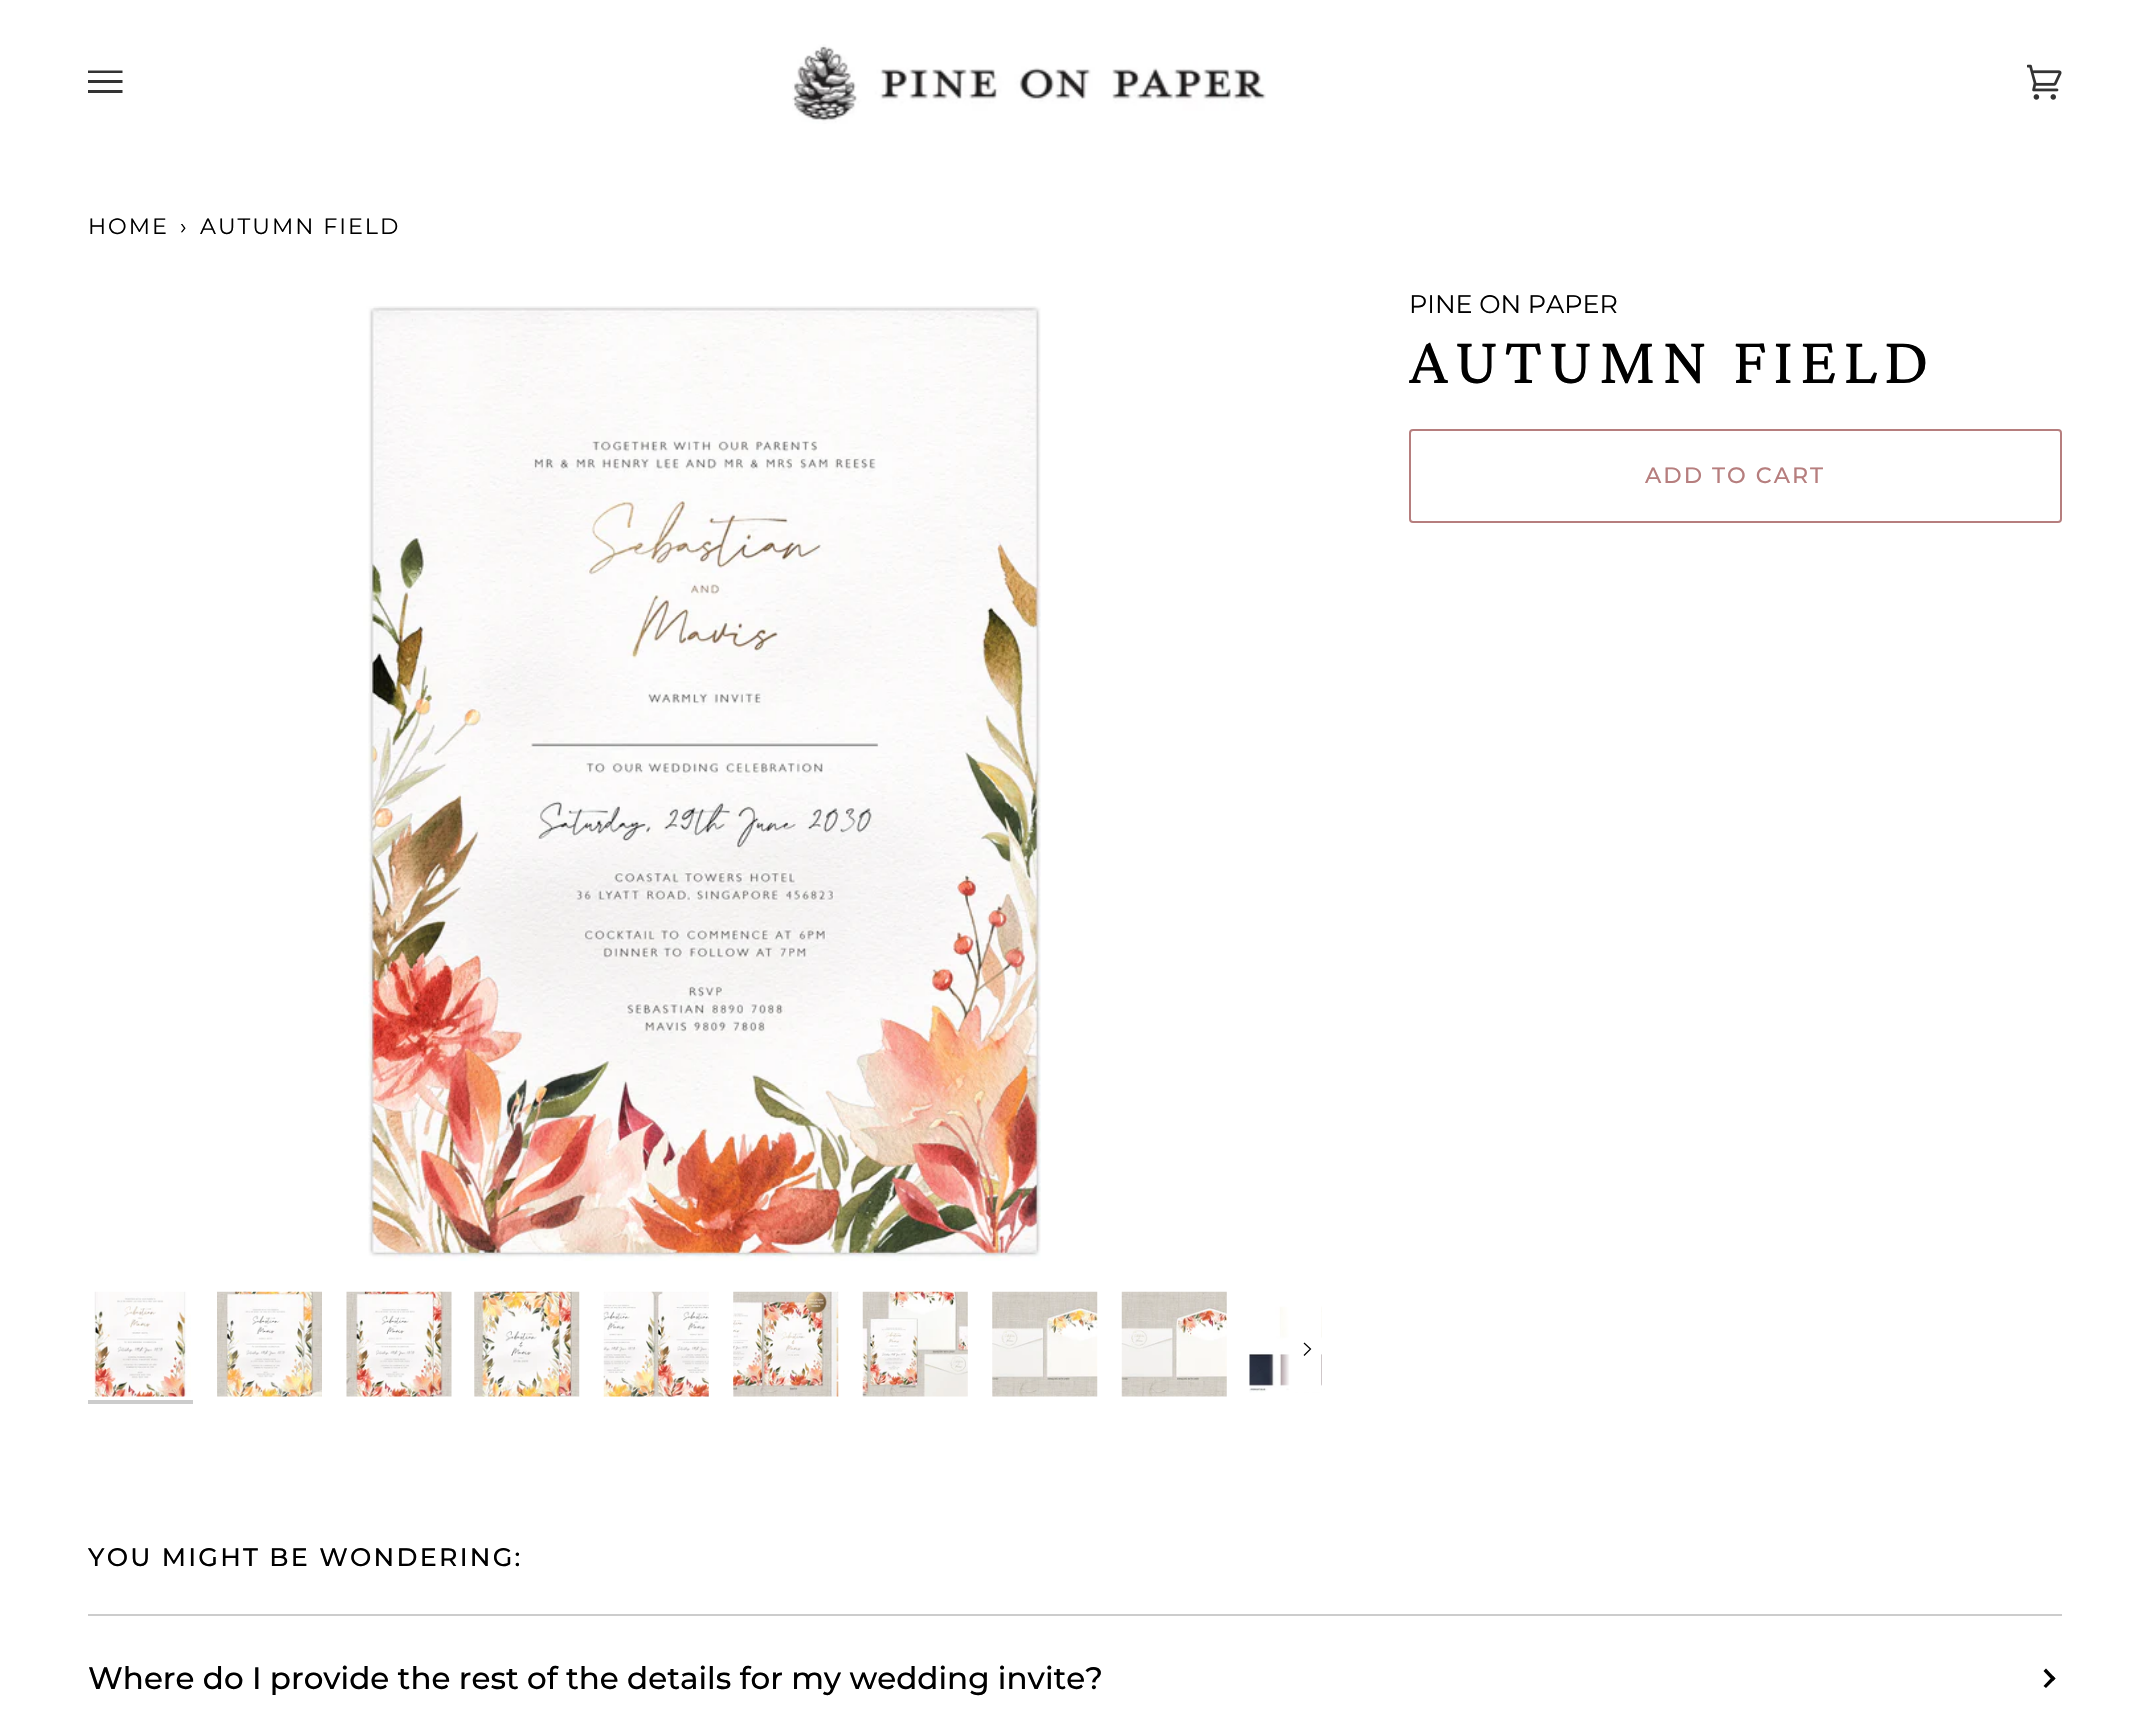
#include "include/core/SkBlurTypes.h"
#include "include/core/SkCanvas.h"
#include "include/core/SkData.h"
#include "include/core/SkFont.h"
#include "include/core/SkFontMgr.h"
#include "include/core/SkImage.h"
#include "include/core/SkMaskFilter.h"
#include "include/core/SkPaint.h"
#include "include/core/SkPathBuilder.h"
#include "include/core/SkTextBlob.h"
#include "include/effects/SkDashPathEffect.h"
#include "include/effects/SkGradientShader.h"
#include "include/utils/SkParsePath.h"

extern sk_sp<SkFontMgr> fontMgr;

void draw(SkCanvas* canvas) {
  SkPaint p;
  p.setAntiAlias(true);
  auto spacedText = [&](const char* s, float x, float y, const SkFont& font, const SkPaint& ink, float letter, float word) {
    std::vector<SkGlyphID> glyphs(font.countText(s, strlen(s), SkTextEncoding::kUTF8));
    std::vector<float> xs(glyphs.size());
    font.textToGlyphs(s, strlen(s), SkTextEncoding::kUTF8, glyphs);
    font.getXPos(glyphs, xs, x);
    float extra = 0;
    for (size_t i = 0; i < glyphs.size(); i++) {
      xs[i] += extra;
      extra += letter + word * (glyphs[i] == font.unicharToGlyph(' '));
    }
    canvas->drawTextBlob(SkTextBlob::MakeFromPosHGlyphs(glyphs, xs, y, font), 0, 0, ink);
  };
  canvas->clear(SK_ColorWHITE);
  canvas->save();
  canvas->clipRect(SkRect::MakeLTRB(88, 56, 123, 109));
  p.setColor(SkColorSetRGB(51, 51, 51));
  canvas->drawPath(SkPathBuilder().moveTo(87.5f, 70.5f).lineTo(122.5f, 70.5f).lineTo(122.5f, 73).lineTo(87.5f, 73).close().moveTo(87.5f, 80).lineTo(122.5f, 80).lineTo(122.5f, 83).lineTo(87.5f, 83).close().moveTo(87.5f, 90).lineTo(122.5f, 90).lineTo(122.5f, 93).lineTo(87.5f, 93).close().detach(), p);
  canvas->restore();
  canvas->drawImageRect(SkImages::DeferredFromEncodedData(SkData::MakeFromFileName("images/1.png")), SkRect::MakeLTRB(792, 44, 1266, 124), SkSamplingOptions());
  canvas->drawImageRect(SkImages::DeferredFromEncodedData(SkData::MakeFromFileName("images/2.png")), SkRect::MakeLTRB(2027, 64, 2062, 100), SkSamplingOptions());
  canvas->drawImageRect(SkImages::DeferredFromEncodedData(SkData::MakeFromFileName("images/3.png")), SkRect::MakeLTRB(363, 306, 1041, 1261), SkSamplingOptions());
  canvas->drawImageRect(SkImages::DeferredFromEncodedData(SkData::MakeFromFileName("images/4.png")), SkRect::MakeLTRB(94, 1291, 191, 1397), SkSamplingOptions());
  p.setColor(SkColorSetRGB(204, 204, 204));
  canvas->drawRect(SkRect::MakeLTRB(88, 1400, 193, 1404), p);
  canvas->drawImageRect(SkImages::DeferredFromEncodedData(SkData::MakeFromFileName("images/5.png")), SkRect::MakeLTRB(217, 1291, 322, 1397), SkSamplingOptions());
  canvas->drawImageRect(SkImages::DeferredFromEncodedData(SkData::MakeFromFileName("images/6.png")), SkRect::MakeLTRB(346, 1291, 452, 1397), SkSamplingOptions());
  canvas->drawImageRect(SkImages::DeferredFromEncodedData(SkData::MakeFromFileName("images/7.png")), SkRect::MakeLTRB(474, 1291, 580, 1397), SkSamplingOptions());
  canvas->drawImageRect(SkImages::DeferredFromEncodedData(SkData::MakeFromFileName("images/8.png")), SkRect::MakeLTRB(603, 1291, 709, 1397), SkSamplingOptions());
  canvas->drawImageRect(SkImages::DeferredFromEncodedData(SkData::MakeFromFileName("images/9.png")), SkRect::MakeLTRB(733, 1291, 839, 1397), SkSamplingOptions());
  canvas->drawImageRect(SkImages::DeferredFromEncodedData(SkData::MakeFromFileName("images/10.png")), SkRect::MakeLTRB(862, 1291, 968, 1397), SkSamplingOptions());
  canvas->drawImageRect(SkImages::DeferredFromEncodedData(SkData::MakeFromFileName("images/11.png")), SkRect::MakeLTRB(992, 1291, 1098, 1397), SkSamplingOptions());
  canvas->drawImageRect(SkImages::DeferredFromEncodedData(SkData::MakeFromFileName("images/12.png")), SkRect::MakeLTRB(1121, 1291, 1227, 1397), SkSamplingOptions());
  canvas->drawImageRect(SkImages::DeferredFromEncodedData(SkData::MakeFromFileName("images/13.png")), SkRect::MakeLTRB(1249, 1306, 1322, 1393), SkSamplingOptions());
  {
    const SkColor colors[] = {SkColorSetARGB(0, 255, 255, 255), SK_ColorWHITE};
    const float stops[] = {0, 0.4f};
    const SkPoint ends[] = {{1269, 1344}, {1321, 1344}};
    p.setShader(SkGradientShader::MakeLinear(ends, colors, stops, 2, SkTileMode::kClamp));
    p.setAlpha(255);
  }
  canvas->drawRect(SkRect::MakeLTRB(1269, 1306, 1321, 1392), p);
  p.setStyle(SkPaint::kStroke_Style);
  p.setStrokeWidth(1.2f);
  p.setShader(nullptr);
  p.setColor(SK_ColorBLACK);
  canvas->drawPath(SkPathBuilder().moveTo(1304, 1355.5f).lineTo(1310.5f, 1349).lineTo(1304, 1343).detach(), p);
  p.setStrokeWidth(2);
  p.setColor(SkColorSetRGB(182, 126, 126));
  canvas->drawRoundRect(SkRect::MakeLTRB(1410, 430, 2061, 522), 3, 3, p);
  p.setStyle(SkPaint::kFill_Style);
  p.setColor(SkColorSetRGB(204, 204, 204));
  canvas->drawRect(SkRect::MakeLTRB(88, 1614, 2062, 1616), p);
  p.setColor(SK_ColorBLACK);
  canvas->drawPath(SkPathBuilder().moveTo(2053, 1681).lineTo(2043.5f, 1671).lineTo(2046, 1668.5f).lineTo(2055.5f, 1678.5f).close().detach(), p);
  canvas->drawPath(SkPathBuilder().moveTo(2046, 1688).lineTo(2043.5f, 1686).lineTo(2053, 1676).lineTo(2055.5f, 1678.5f).close().detach(), p);
  SkFont font1(fontMgr->matchFamilyStyle("Montserrat", SkFontStyle::Normal()), 22.25f);
  font1.setSubpixel(true);
  spacedText("HOME", 88, 234, font1, p, 2, 0);
  spacedText("›", 180, 234, font1, p, 2, 0);
  spacedText("AUTUMN FIELD", 200, 234, font1, p, 2, 0);
  SkFont font2(fontMgr->matchFamilyStyle("Montserrat", SkFontStyle::Normal()), 25.4f);
  font2.setSubpixel(true);
  canvas->drawString("PINE ON PAPER", 1409, 313, font2, p);
  SkFont font3(fontMgr->matchFamilyStyle("Crimson Pro", SkFontStyle::Normal()), 68.5f);
  font3.setSubpixel(true);
  spacedText("AUTUMN FIELD", 1409, 383, font3, p, 6.25f, 0);
  SkFont font4(fontMgr->matchFamilyStyle("Montserrat", SkFontStyle(500, SkFontStyle::kNormal_Width, SkFontStyle::kUpright_Slant)), 22.25f);
  font4.setSubpixel(true);
  p.setColor(SkColorSetRGB(182, 126, 126));
  spacedText("ADD TO CART", 1645, 483, font4, p, 2, 0);
  SkFont font5(fontMgr->matchFamilyStyle("Montserrat", SkFontStyle(500, SkFontStyle::kNormal_Width, SkFontStyle::kUpright_Slant)), 25.4f);
  font5.setSubpixel(true);
  p.setColor(SK_ColorBLACK);
  spacedText("YOU MIGHT BE WONDERING:", 88, 1566, font5, p, 2.25f, 0);
  SkFont font6(fontMgr->matchFamilyStyle("Montserrat", SkFontStyle(500, SkFontStyle::kNormal_Width, SkFontStyle::kUpright_Slant)), 30.95f);
  font6.setSubpixel(true);
  canvas->drawString("Where do I provide the rest of the details for my wedding invite?", 88, 1689, font6, p);
}
